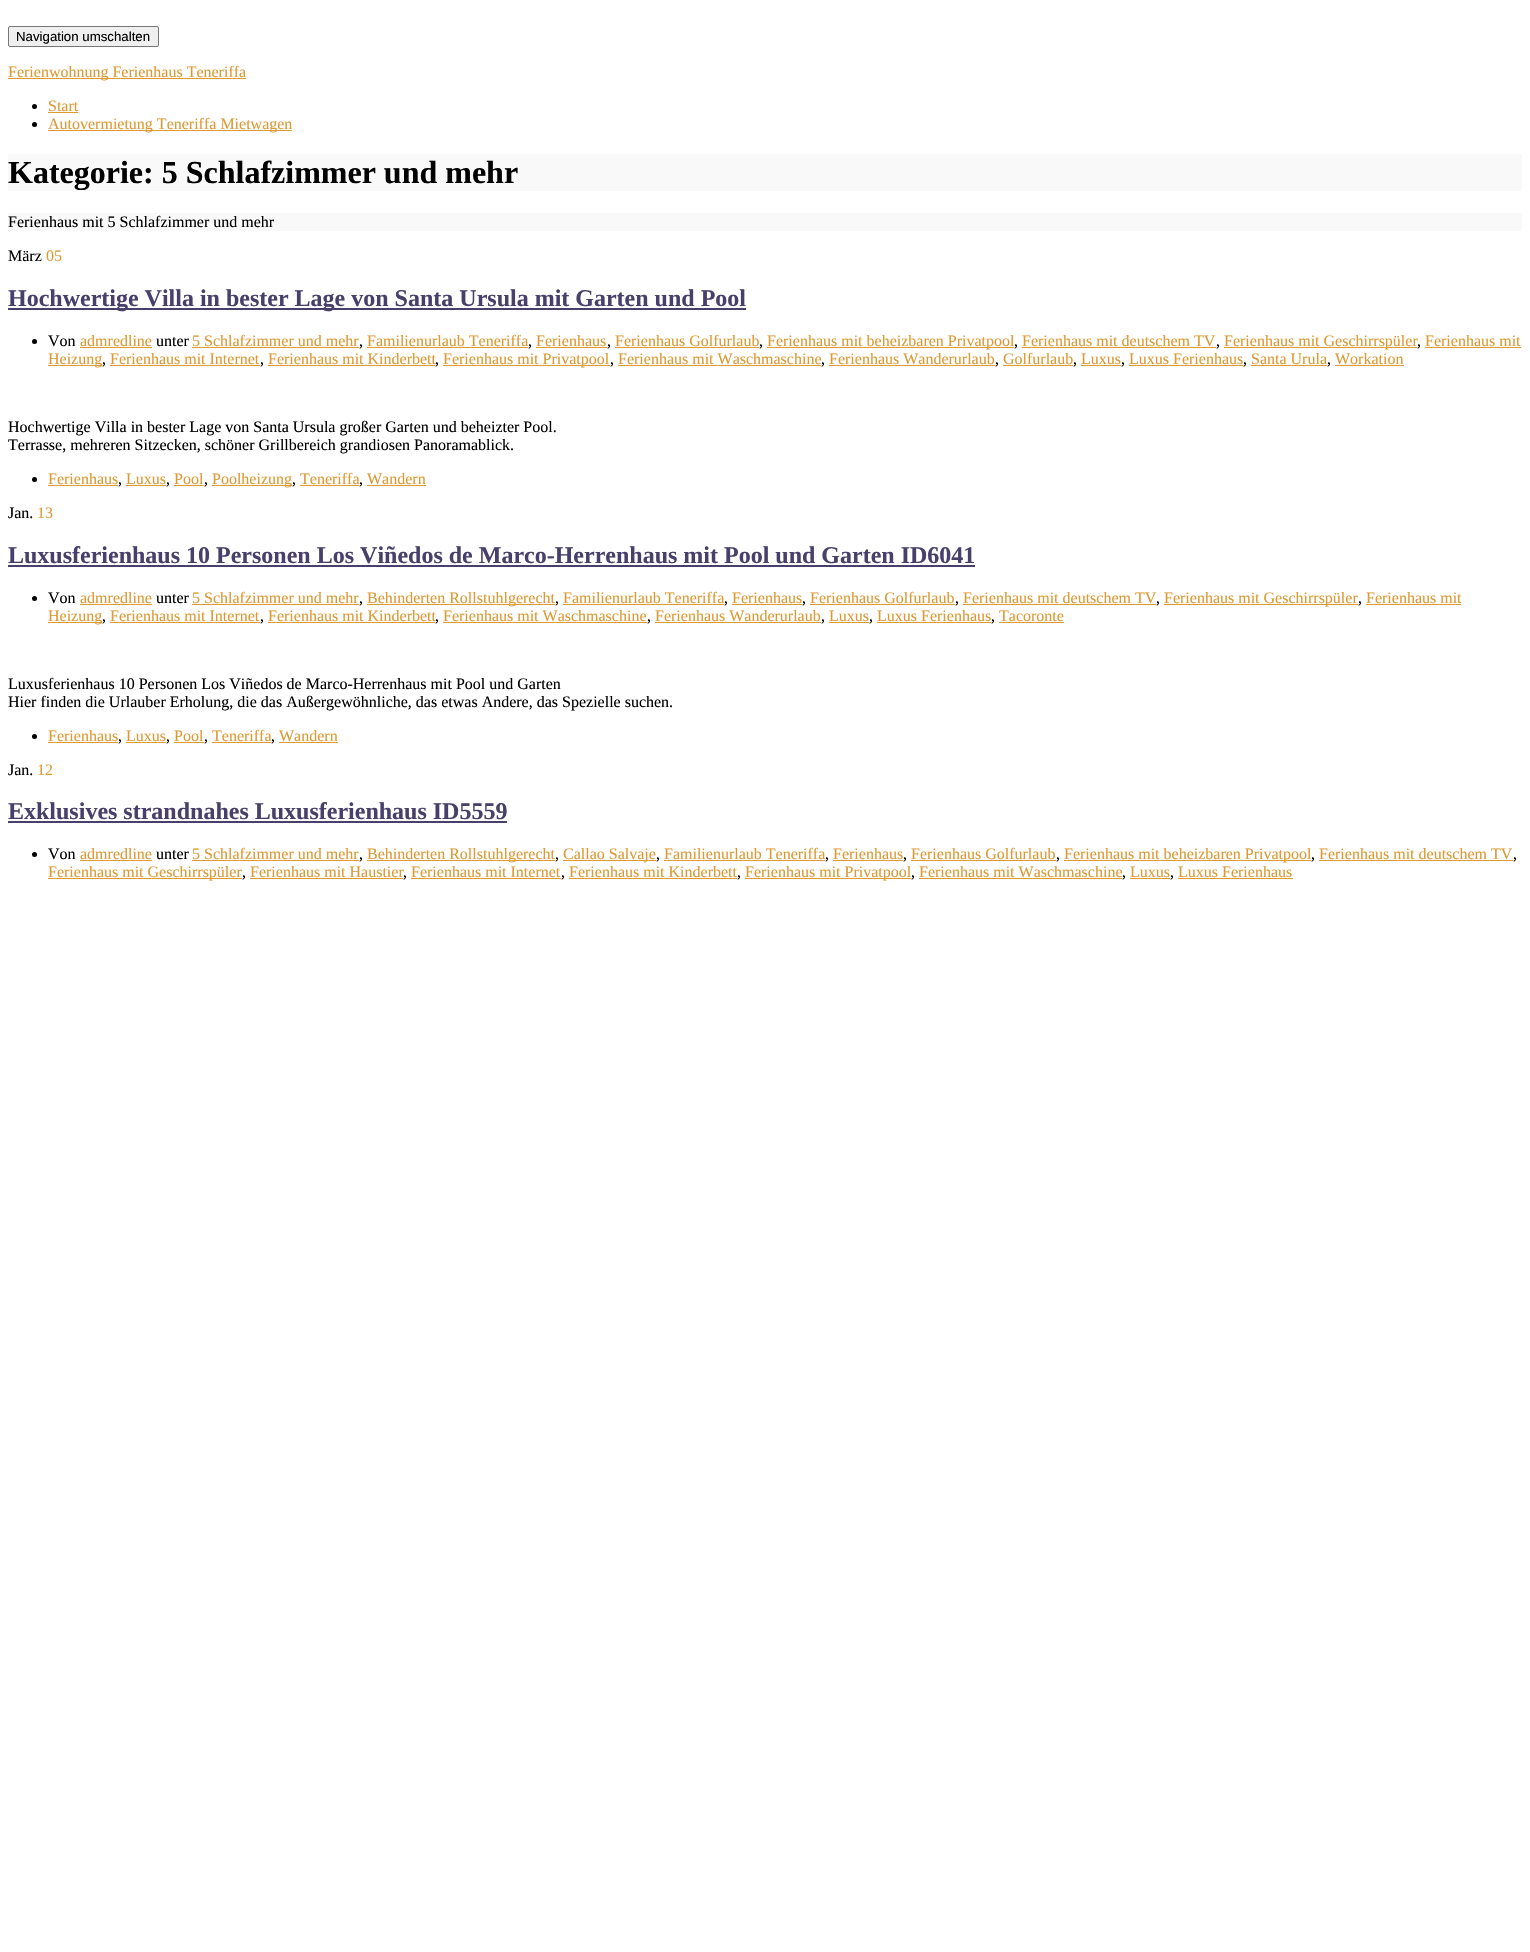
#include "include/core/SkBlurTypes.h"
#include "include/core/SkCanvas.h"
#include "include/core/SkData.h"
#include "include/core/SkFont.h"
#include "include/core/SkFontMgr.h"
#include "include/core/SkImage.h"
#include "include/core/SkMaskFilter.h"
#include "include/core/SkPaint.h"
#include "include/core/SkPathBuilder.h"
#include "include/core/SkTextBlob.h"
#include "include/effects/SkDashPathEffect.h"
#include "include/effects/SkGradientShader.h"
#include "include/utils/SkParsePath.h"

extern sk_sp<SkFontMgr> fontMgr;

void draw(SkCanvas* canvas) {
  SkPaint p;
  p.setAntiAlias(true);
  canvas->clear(SK_ColorWHITE);
  p.setColor(SkColorSetRGB(239, 239, 239));
  canvas->drawRoundRect(SkRect::MakeLTRB(8.5f, 26.5f, 158.5f, 46.5f), 1.5f, 1.5f, p);
  p.setStyle(SkPaint::kStroke_Style);
  p.setStrokeWidth(1);
  p.setColor(SkColorSetRGB(118, 118, 118));
  canvas->drawRoundRect(SkRect::MakeLTRB(8.5f, 26.5f, 158.5f, 46.5f), 1.5f, 1.5f, p);
  p.setStyle(SkPaint::kFill_Style);
  p.setColor(SkColorSetRGB(221, 153, 51));
  canvas->drawRect(SkRect::MakeLTRB(8, 78, 246, 79), p);
  p.setColor(SK_ColorBLACK);
  canvas->drawCircle(34.5f, 106.5f, 2.5f, p);
  p.setColor(SkColorSetRGB(221, 153, 51));
  canvas->drawRect(SkRect::MakeLTRB(48, 112, 78, 113), p);
  p.setColor(SK_ColorBLACK);
  canvas->drawCircle(34.5f, 124.5f, 2.5f, p);
  p.setColor(SkColorSetRGB(221, 153, 51));
  canvas->drawRect(SkRect::MakeLTRB(48, 130, 292, 131), p);
  p.setColor(SkColorSetRGB(249, 249, 249));
  canvas->drawRect(SkRect::MakeLTRB(8, 154, 1522, 191), p);
  canvas->drawRect(SkRect::MakeLTRB(8, 213, 1522, 231), p);
  p.setColor(SkColorSetRGB(72, 64, 107));
  canvas->drawRect(SkRect::MakeLTRB(8, 308, 746, 310), p);
  p.setColor(SK_ColorBLACK);
  canvas->drawCircle(34.5f, 341.5f, 2.5f, p);
  p.setColor(SkColorSetRGB(221, 153, 51));
  canvas->drawRect(SkRect::MakeLTRB(80, 347, 152, 348), p);
  canvas->drawRect(SkRect::MakeLTRB(192, 347, 359, 348), p);
  canvas->drawRect(SkRect::MakeLTRB(367, 347, 528, 348), p);
  canvas->drawRect(SkRect::MakeLTRB(536, 347, 607, 348), p);
  canvas->drawRect(SkRect::MakeLTRB(615, 347, 759, 348), p);
  canvas->drawRect(SkRect::MakeLTRB(767, 347, 1014, 348), p);
  canvas->drawRect(SkRect::MakeLTRB(1022, 347, 1216, 348), p);
  canvas->drawRect(SkRect::MakeLTRB(1224, 347, 1417, 348), p);
  canvas->drawRect(SkRect::MakeLTRB(1425, 347, 1521, 348), p);
  canvas->drawRect(SkRect::MakeLTRB(48, 365, 102, 366), p);
  canvas->drawRect(SkRect::MakeLTRB(110, 365, 260, 366), p);
  canvas->drawRect(SkRect::MakeLTRB(268, 365, 435, 366), p);
  canvas->drawRect(SkRect::MakeLTRB(443, 365, 610, 366), p);
  canvas->drawRect(SkRect::MakeLTRB(618, 365, 821, 366), p);
  canvas->drawRect(SkRect::MakeLTRB(829, 365, 995, 366), p);
  canvas->drawRect(SkRect::MakeLTRB(1003, 365, 1073, 366), p);
  canvas->drawRect(SkRect::MakeLTRB(1081, 365, 1121, 366), p);
  canvas->drawRect(SkRect::MakeLTRB(1129, 365, 1243, 366), p);
  canvas->drawRect(SkRect::MakeLTRB(1251, 365, 1327, 366), p);
  canvas->drawRect(SkRect::MakeLTRB(1335, 365, 1404, 366), p);
  p.setColor(SK_ColorBLACK);
  canvas->drawCircle(34.5f, 479.5f, 2.5f, p);
  p.setColor(SkColorSetRGB(221, 153, 51));
  canvas->drawRect(SkRect::MakeLTRB(48, 485, 118, 486), p);
  canvas->drawRect(SkRect::MakeLTRB(126, 485, 166, 486), p);
  canvas->drawRect(SkRect::MakeLTRB(174, 485, 204, 486), p);
  canvas->drawRect(SkRect::MakeLTRB(212, 485, 292, 486), p);
  canvas->drawRect(SkRect::MakeLTRB(300, 485, 359, 486), p);
  canvas->drawRect(SkRect::MakeLTRB(367, 485, 426, 486), p);
  p.setColor(SkColorSetRGB(72, 64, 107));
  canvas->drawRect(SkRect::MakeLTRB(8, 565, 975, 567), p);
  p.setColor(SK_ColorBLACK);
  canvas->drawCircle(34.5f, 598.5f, 2.5f, p);
  p.setColor(SkColorSetRGB(221, 153, 51));
  canvas->drawRect(SkRect::MakeLTRB(80, 604, 152, 605), p);
  canvas->drawRect(SkRect::MakeLTRB(192, 604, 359, 605), p);
  canvas->drawRect(SkRect::MakeLTRB(367, 604, 555, 605), p);
  canvas->drawRect(SkRect::MakeLTRB(563, 604, 724, 605), p);
  canvas->drawRect(SkRect::MakeLTRB(732, 604, 802, 605), p);
  canvas->drawRect(SkRect::MakeLTRB(810, 604, 955, 605), p);
  canvas->drawRect(SkRect::MakeLTRB(963, 604, 1156, 605), p);
  canvas->drawRect(SkRect::MakeLTRB(1164, 604, 1358, 605), p);
  canvas->drawRect(SkRect::MakeLTRB(1366, 604, 1461, 605), p);
  canvas->drawRect(SkRect::MakeLTRB(48, 622, 102, 623), p);
  canvas->drawRect(SkRect::MakeLTRB(110, 622, 260, 623), p);
  canvas->drawRect(SkRect::MakeLTRB(268, 622, 435, 623), p);
  canvas->drawRect(SkRect::MakeLTRB(443, 622, 647, 623), p);
  canvas->drawRect(SkRect::MakeLTRB(655, 622, 821, 623), p);
  canvas->drawRect(SkRect::MakeLTRB(829, 622, 869, 623), p);
  canvas->drawRect(SkRect::MakeLTRB(877, 622, 991, 623), p);
  canvas->drawRect(SkRect::MakeLTRB(999, 622, 1064, 623), p);
  p.setColor(SK_ColorBLACK);
  canvas->drawCircle(34.5f, 736.5f, 2.5f, p);
  p.setColor(SkColorSetRGB(221, 153, 51));
  canvas->drawRect(SkRect::MakeLTRB(48, 742, 118, 743), p);
  canvas->drawRect(SkRect::MakeLTRB(126, 742, 166, 743), p);
  canvas->drawRect(SkRect::MakeLTRB(174, 742, 204, 743), p);
  canvas->drawRect(SkRect::MakeLTRB(212, 742, 271, 743), p);
  canvas->drawRect(SkRect::MakeLTRB(279, 742, 338, 743), p);
  p.setColor(SkColorSetRGB(72, 64, 107));
  canvas->drawRect(SkRect::MakeLTRB(8, 821, 507, 823), p);
  p.setColor(SK_ColorBLACK);
  canvas->drawCircle(34.5f, 854.5f, 2.5f, p);
  p.setColor(SkColorSetRGB(221, 153, 51));
  canvas->drawRect(SkRect::MakeLTRB(80, 860, 152, 861), p);
  canvas->drawRect(SkRect::MakeLTRB(192, 860, 359, 861), p);
  canvas->drawRect(SkRect::MakeLTRB(367, 860, 555, 861), p);
  canvas->drawRect(SkRect::MakeLTRB(563, 860, 656, 861), p);
  canvas->drawRect(SkRect::MakeLTRB(664, 860, 825, 861), p);
  canvas->drawRect(SkRect::MakeLTRB(833, 860, 903, 861), p);
  canvas->drawRect(SkRect::MakeLTRB(911, 860, 1056, 861), p);
  canvas->drawRect(SkRect::MakeLTRB(1064, 860, 1311, 861), p);
  canvas->drawRect(SkRect::MakeLTRB(1319, 860, 1513, 861), p);
  canvas->drawRect(SkRect::MakeLTRB(48, 878, 242, 879), p);
  canvas->drawRect(SkRect::MakeLTRB(250, 878, 403, 879), p);
  canvas->drawRect(SkRect::MakeLTRB(411, 878, 561, 879), p);
  canvas->drawRect(SkRect::MakeLTRB(569, 878, 737, 879), p);
  canvas->drawRect(SkRect::MakeLTRB(745, 878, 911, 879), p);
  canvas->drawRect(SkRect::MakeLTRB(919, 878, 1122, 879), p);
  canvas->drawRect(SkRect::MakeLTRB(1130, 878, 1170, 879), p);
  canvas->drawRect(SkRect::MakeLTRB(1178, 878, 1293, 879), p);
  SkFont font1(fontMgr->matchFamilyStyle("Liberation Sans", SkFontStyle::Normal()), 13.25f);
  font1.setSubpixel(true);
  p.setColor(SK_ColorBLACK);
  canvas->drawString("Navigation umschalten", 16, 41, font1, p);
  SkFont font2(fontMgr->matchFamilyStyle("Liberation Serif", SkFontStyle::Normal()), 16);
  font2.setSubpixel(true);
  p.setColor(SkColorSetRGB(221, 153, 51));
  canvas->drawString("Ferienwohnung Ferienhaus Teneriffa", 8, 77, font2, p);
  canvas->drawString("Start", 48, 111, font2, p);
  canvas->drawString("Autovermietung Teneriffa Mietwagen", 48, 129, font2, p);
  SkFont font3(fontMgr->matchFamilyStyle("Liberation Serif", SkFontStyle::Bold()), 32);
  font3.setSubpixel(true);
  p.setColor(SK_ColorBLACK);
  canvas->drawString("Kategorie: 5 Schlafzimmer und mehr", 8, 183, font3, p);
  canvas->drawString("Ferienhaus mit 5 Schlafzimmer und mehr", 8, 227, font2, p);
  canvas->drawString("März", 8, 261, font2, p);
  p.setColor(SkColorSetRGB(221, 153, 51));
  canvas->drawString("05", 46, 261, font2, p);
  SkFont font4(fontMgr->matchFamilyStyle("Liberation Serif", SkFontStyle::Bold()), 24);
  font4.setSubpixel(true);
  p.setColor(SkColorSetRGB(72, 64, 107));
  canvas->drawString("Hochwertige Villa in bester Lage von Santa Ursula mit Garten und Pool", 8, 306, font4, p);
  p.setColor(SK_ColorBLACK);
  canvas->drawString("Von", 48, 346, font2, p);
  p.setColor(SkColorSetRGB(221, 153, 51));
  canvas->drawString("admredline", 80, 346, font2, p);
  p.setColor(SK_ColorBLACK);
  canvas->drawString("unter", 156, 346, font2, p);
  p.setColor(SkColorSetRGB(221, 153, 51));
  canvas->drawString("5 Schlafzimmer und mehr", 192, 346, font2, p);
  canvas->drawString("Familienurlaub Teneriffa", 367, 346, font2, p);
  canvas->drawString("Ferienhaus", 536, 346, font2, p);
  canvas->drawString("Ferienhaus Golfurlaub", 615, 346, font2, p);
  canvas->drawString("Ferienhaus mit beheizbaren Privatpool", 767, 346, font2, p);
  canvas->drawString("Ferienhaus mit deutschem TV", 1022, 346, font2, p);
  canvas->drawString("Ferienhaus mit Geschirrspüler", 1224, 346, font2, p);
  canvas->drawString("Ferienhaus mit", 1425, 346, font2, p);
  p.setColor(SK_ColorBLACK);
  canvas->drawString(",", 359, 346, font2, p);
  canvas->drawString(",", 528, 346, font2, p);
  canvas->drawString(",", 607, 346, font2, p);
  canvas->drawString(",", 759, 346, font2, p);
  canvas->drawString(",", 1014, 346, font2, p);
  canvas->drawString(",", 1216, 346, font2, p);
  canvas->drawString(",", 1417, 346, font2, p);
  p.setColor(SkColorSetRGB(221, 153, 51));
  canvas->drawString("Heizung", 48, 364, font2, p);
  p.setColor(SK_ColorBLACK);
  canvas->drawString(",", 102, 364, font2, p);
  p.setColor(SkColorSetRGB(221, 153, 51));
  canvas->drawString("Ferienhaus mit Internet", 110, 364, font2, p);
  p.setColor(SK_ColorBLACK);
  canvas->drawString(",", 260, 364, font2, p);
  p.setColor(SkColorSetRGB(221, 153, 51));
  canvas->drawString("Ferienhaus mit Kinderbett", 268, 364, font2, p);
  p.setColor(SK_ColorBLACK);
  canvas->drawString(",", 435, 364, font2, p);
  p.setColor(SkColorSetRGB(221, 153, 51));
  canvas->drawString("Ferienhaus mit Privatpool", 443, 364, font2, p);
  p.setColor(SK_ColorBLACK);
  canvas->drawString(",", 610, 364, font2, p);
  p.setColor(SkColorSetRGB(221, 153, 51));
  canvas->drawString("Ferienhaus mit Waschmaschine", 618, 364, font2, p);
  p.setColor(SK_ColorBLACK);
  canvas->drawString(",", 821, 364, font2, p);
  p.setColor(SkColorSetRGB(221, 153, 51));
  canvas->drawString("Ferienhaus Wanderurlaub", 829, 364, font2, p);
  p.setColor(SK_ColorBLACK);
  canvas->drawString(",", 995, 364, font2, p);
  p.setColor(SkColorSetRGB(221, 153, 51));
  canvas->drawString("Golfurlaub", 1003, 364, font2, p);
  p.setColor(SK_ColorBLACK);
  canvas->drawString(",", 1073, 364, font2, p);
  p.setColor(SkColorSetRGB(221, 153, 51));
  canvas->drawString("Luxus", 1081, 364, font2, p);
  p.setColor(SK_ColorBLACK);
  canvas->drawString(",", 1121, 364, font2, p);
  p.setColor(SkColorSetRGB(221, 153, 51));
  canvas->drawString("Luxus Ferienhaus", 1129, 364, font2, p);
  p.setColor(SK_ColorBLACK);
  canvas->drawString(",", 1243, 364, font2, p);
  p.setColor(SkColorSetRGB(221, 153, 51));
  canvas->drawString("Santa Urula", 1251, 364, font2, p);
  p.setColor(SK_ColorBLACK);
  canvas->drawString(",", 1327, 364, font2, p);
  p.setColor(SkColorSetRGB(221, 153, 51));
  canvas->drawString("Workation", 1335, 364, font2, p);
  p.setColor(SK_ColorBLACK);
  canvas->drawString("Hochwertige Villa in bester Lage von Santa Ursula großer Garten und beheizter Pool.", 8, 432, font2, p);
  canvas->drawString("Terrasse, mehreren Sitzecken, schöner Grillbereich grandiosen Panoramablick.", 8, 450, font2, p);
  p.setColor(SkColorSetRGB(221, 153, 51));
  canvas->drawString("Ferienhaus", 48, 484, font2, p);
  canvas->drawString("Luxus", 126, 484, font2, p);
  canvas->drawString("Pool", 174, 484, font2, p);
  canvas->drawString("Poolheizung", 212, 484, font2, p);
  canvas->drawString("Teneriffa", 300, 484, font2, p);
  canvas->drawString("Wandern", 367, 484, font2, p);
  p.setColor(SK_ColorBLACK);
  canvas->drawString(",", 118, 484, font2, p);
  canvas->drawString(",", 166, 484, font2, p);
  canvas->drawString(",", 204, 484, font2, p);
  canvas->drawString(",", 292, 484, font2, p);
  canvas->drawString(",", 359, 484, font2, p);
  canvas->drawString("Jan.", 8, 518, font2, p);
  p.setColor(SkColorSetRGB(221, 153, 51));
  canvas->drawString("13", 37, 518, font2, p);
  p.setColor(SkColorSetRGB(72, 64, 107));
  canvas->drawString("Luxusferienhaus 10 Personen Los Viñedos de Marco-Herrenhaus mit Pool und Garten ID6041", 8, 563, font4, p);
  p.setColor(SK_ColorBLACK);
  canvas->drawString("Von", 48, 603, font2, p);
  p.setColor(SkColorSetRGB(221, 153, 51));
  canvas->drawString("admredline", 80, 603, font2, p);
  p.setColor(SK_ColorBLACK);
  canvas->drawString("unter", 156, 603, font2, p);
  p.setColor(SkColorSetRGB(221, 153, 51));
  canvas->drawString("5 Schlafzimmer und mehr", 192, 603, font2, p);
  canvas->drawString("Behinderten Rollstuhlgerecht", 367, 603, font2, p);
  canvas->drawString("Familienurlaub Teneriffa", 563, 603, font2, p);
  canvas->drawString("Ferienhaus", 732, 603, font2, p);
  canvas->drawString("Ferienhaus Golfurlaub", 810, 603, font2, p);
  canvas->drawString("Ferienhaus mit deutschem TV", 963, 603, font2, p);
  canvas->drawString("Ferienhaus mit Geschirrspüler", 1164, 603, font2, p);
  canvas->drawString("Ferienhaus mit", 1366, 603, font2, p);
  p.setColor(SK_ColorBLACK);
  canvas->drawString(",", 359, 603, font2, p);
  canvas->drawString(",", 555, 603, font2, p);
  canvas->drawString(",", 724, 603, font2, p);
  canvas->drawString(",", 802, 603, font2, p);
  canvas->drawString(",", 955, 603, font2, p);
  canvas->drawString(",", 1156, 603, font2, p);
  canvas->drawString(",", 1358, 603, font2, p);
  p.setColor(SkColorSetRGB(221, 153, 51));
  canvas->drawString("Heizung", 48, 621, font2, p);
  p.setColor(SK_ColorBLACK);
  canvas->drawString(",", 102, 621, font2, p);
  p.setColor(SkColorSetRGB(221, 153, 51));
  canvas->drawString("Ferienhaus mit Internet", 110, 621, font2, p);
  p.setColor(SK_ColorBLACK);
  canvas->drawString(",", 260, 621, font2, p);
  p.setColor(SkColorSetRGB(221, 153, 51));
  canvas->drawString("Ferienhaus mit Kinderbett", 268, 621, font2, p);
  p.setColor(SK_ColorBLACK);
  canvas->drawString(",", 435, 621, font2, p);
  p.setColor(SkColorSetRGB(221, 153, 51));
  canvas->drawString("Ferienhaus mit Waschmaschine", 443, 621, font2, p);
  p.setColor(SK_ColorBLACK);
  canvas->drawString(",", 647, 621, font2, p);
  p.setColor(SkColorSetRGB(221, 153, 51));
  canvas->drawString("Ferienhaus Wanderurlaub", 655, 621, font2, p);
  p.setColor(SK_ColorBLACK);
  canvas->drawString(",", 821, 621, font2, p);
  p.setColor(SkColorSetRGB(221, 153, 51));
  canvas->drawString("Luxus", 829, 621, font2, p);
  p.setColor(SK_ColorBLACK);
  canvas->drawString(",", 869, 621, font2, p);
  p.setColor(SkColorSetRGB(221, 153, 51));
  canvas->drawString("Luxus Ferienhaus", 877, 621, font2, p);
  p.setColor(SK_ColorBLACK);
  canvas->drawString(",", 991, 621, font2, p);
  p.setColor(SkColorSetRGB(221, 153, 51));
  canvas->drawString("Tacoronte", 999, 621, font2, p);
  p.setColor(SK_ColorBLACK);
  canvas->drawString("Luxusferienhaus 10 Personen Los Viñedos de Marco-Herrenhaus mit Pool und Garten", 8, 689, font2, p);
  canvas->drawString("Hier finden die Urlauber Erholung, die das Außergewöhnliche, das etwas Andere, das Spezielle suchen.", 8, 707, font2, p);
  p.setColor(SkColorSetRGB(221, 153, 51));
  canvas->drawString("Ferienhaus", 48, 741, font2, p);
  canvas->drawString("Luxus", 126, 741, font2, p);
  canvas->drawString("Pool", 174, 741, font2, p);
  canvas->drawString("Teneriffa", 212, 741, font2, p);
  canvas->drawString("Wandern", 279, 741, font2, p);
  p.setColor(SK_ColorBLACK);
  canvas->drawString(",", 118, 741, font2, p);
  canvas->drawString(",", 166, 741, font2, p);
  canvas->drawString(",", 204, 741, font2, p);
  canvas->drawString(",", 271, 741, font2, p);
  canvas->drawString("Jan.", 8, 775, font2, p);
  p.setColor(SkColorSetRGB(221, 153, 51));
  canvas->drawString("12", 37, 775, font2, p);
  p.setColor(SkColorSetRGB(72, 64, 107));
  canvas->drawString("Exklusives strandnahes Luxusferienhaus ID5559", 8, 819, font4, p);
  p.setColor(SK_ColorBLACK);
  canvas->drawString("Von", 48, 859, font2, p);
  p.setColor(SkColorSetRGB(221, 153, 51));
  canvas->drawString("admredline", 80, 859, font2, p);
  p.setColor(SK_ColorBLACK);
  canvas->drawString("unter", 156, 859, font2, p);
  p.setColor(SkColorSetRGB(221, 153, 51));
  canvas->drawString("5 Schlafzimmer und mehr", 192, 859, font2, p);
  canvas->drawString("Behinderten Rollstuhlgerecht", 367, 859, font2, p);
  canvas->drawString("Callao Salvaje", 563, 859, font2, p);
  canvas->drawString("Familienurlaub Teneriffa", 664, 859, font2, p);
  canvas->drawString("Ferienhaus", 833, 859, font2, p);
  canvas->drawString("Ferienhaus Golfurlaub", 911, 859, font2, p);
  canvas->drawString("Ferienhaus mit beheizbaren Privatpool", 1064, 859, font2, p);
  canvas->drawString("Ferienhaus mit deutschem TV", 1319, 859, font2, p);
  p.setColor(SK_ColorBLACK);
  canvas->drawString(",", 359, 859, font2, p);
  canvas->drawString(",", 555, 859, font2, p);
  canvas->drawString(",", 656, 859, font2, p);
  canvas->drawString(",", 825, 859, font2, p);
  canvas->drawString(",", 903, 859, font2, p);
  canvas->drawString(",", 1056, 859, font2, p);
  canvas->drawString(",", 1311, 859, font2, p);
  canvas->drawString(",", 1513, 859, font2, p);
  p.setColor(SkColorSetRGB(221, 153, 51));
  canvas->drawString("Ferienhaus mit Geschirrspüler", 48, 877, font2, p);
  p.setColor(SK_ColorBLACK);
  canvas->drawString(",", 242, 877, font2, p);
  p.setColor(SkColorSetRGB(221, 153, 51));
  canvas->drawString("Ferienhaus mit Haustier", 250, 877, font2, p);
  p.setColor(SK_ColorBLACK);
  canvas->drawString(",", 403, 877, font2, p);
  p.setColor(SkColorSetRGB(221, 153, 51));
  canvas->drawString("Ferienhaus mit Internet", 411, 877, font2, p);
  p.setColor(SK_ColorBLACK);
  canvas->drawString(",", 561, 877, font2, p);
  p.setColor(SkColorSetRGB(221, 153, 51));
  canvas->drawString("Ferienhaus mit Kinderbett", 569, 877, font2, p);
  p.setColor(SK_ColorBLACK);
  canvas->drawString(",", 737, 877, font2, p);
  p.setColor(SkColorSetRGB(221, 153, 51));
  canvas->drawString("Ferienhaus mit Privatpool", 745, 877, font2, p);
  p.setColor(SK_ColorBLACK);
  canvas->drawString(",", 911, 877, font2, p);
  p.setColor(SkColorSetRGB(221, 153, 51));
  canvas->drawString("Ferienhaus mit Waschmaschine", 919, 877, font2, p);
  p.setColor(SK_ColorBLACK);
  canvas->drawString(",", 1122, 877, font2, p);
  p.setColor(SkColorSetRGB(221, 153, 51));
  canvas->drawString("Luxus", 1130, 877, font2, p);
  p.setColor(SK_ColorBLACK);
  canvas->drawString(",", 1170, 877, font2, p);
  p.setColor(SkColorSetRGB(221, 153, 51));
  canvas->drawString("Luxus Ferienhaus", 1178, 877, font2, p);
}
